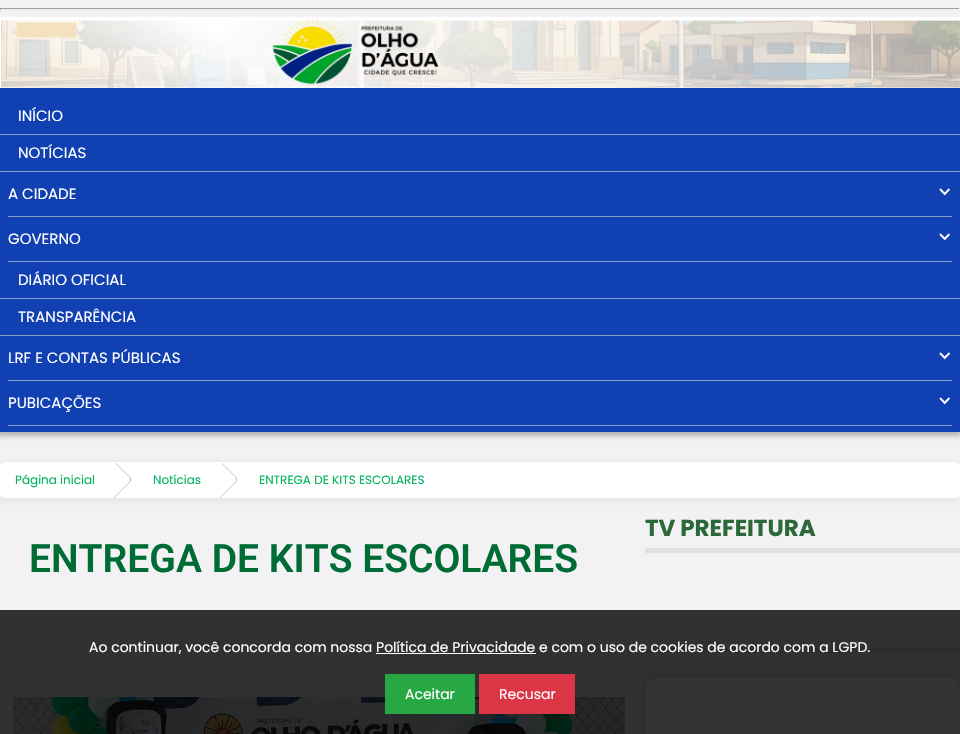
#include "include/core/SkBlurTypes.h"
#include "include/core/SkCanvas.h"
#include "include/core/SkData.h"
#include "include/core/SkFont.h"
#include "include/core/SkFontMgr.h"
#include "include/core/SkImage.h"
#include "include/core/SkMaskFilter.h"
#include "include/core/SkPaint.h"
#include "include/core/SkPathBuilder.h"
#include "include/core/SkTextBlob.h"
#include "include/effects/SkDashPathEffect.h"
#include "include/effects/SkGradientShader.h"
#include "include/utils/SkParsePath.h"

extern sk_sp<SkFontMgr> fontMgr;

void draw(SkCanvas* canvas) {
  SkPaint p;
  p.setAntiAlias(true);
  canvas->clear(SkColorSetRGB(242, 242, 244));
  p.setColor(SkColorSetRGB(159, 159, 159));
  canvas->drawRect(SkRect::MakeLTRB(0, 8, 960, 9), p);
  p.setColor(SkColorSetRGB(238, 238, 238));
  canvas->drawRect(SkRect::MakeLTRB(959, 8, 960, 10), p);
  canvas->drawRect(SkRect::MakeLTRB(0, 9, 960, 10), p);
  p.setColor(SkColorSetRGB(159, 159, 159));
  canvas->drawRect(SkRect::MakeLTRB(0, 8, 1, 10), p);
  p.setColor(SkColorSetARGB(66, 0, 0, 0));
  p.setMaskFilter(SkMaskFilter::MakeBlur(kNormal_SkBlurStyle, 2.5f));
  canvas->drawRect(SkRect::MakeLTRB(-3, 88, 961, 436), p);
  p.setMaskFilter(nullptr);
  p.setColor(SK_ColorWHITE);
  canvas->drawRect(SkRect::MakeLTRB(0, 17, 960, 88), p);
  canvas->drawImageRect(SkImages::DeferredFromEncodedData(SkData::MakeFromFileName("images/1.png")), SkRect::MakeLTRB(1, 17, 960, 88), SkSamplingOptions());
  p.setColor(SkColorSetRGB(16, 64, 178));
  canvas->drawRect(SkRect::MakeLTRB(0, 88, 960, 432), p);
  p.setColor(SkColorSetRGB(138, 155, 195));
  canvas->drawRect(SkRect::MakeLTRB(0, 134, 960, 135), p);
  canvas->drawRect(SkRect::MakeLTRB(0, 171, 960, 172), p);
  canvas->drawRect(SkRect::MakeLTRB(8, 216, 952, 217), p);
  canvas->drawImageRect(SkImages::DeferredFromEncodedData(SkData::MakeFromFileName("images/2.png")), SkRect::MakeLTRB(939, 188, 950, 196), SkSamplingOptions());
  canvas->drawRect(SkRect::MakeLTRB(8, 261, 952, 262), p);
  canvas->drawImageRect(SkImages::DeferredFromEncodedData(SkData::MakeFromFileName("images/2.png")), SkRect::MakeLTRB(939, 233, 950, 241), SkSamplingOptions());
  canvas->drawRect(SkRect::MakeLTRB(0, 298, 960, 299), p);
  canvas->drawRect(SkRect::MakeLTRB(0, 335, 960, 336), p);
  canvas->drawRect(SkRect::MakeLTRB(8, 380, 952, 381), p);
  canvas->drawImageRect(SkImages::DeferredFromEncodedData(SkData::MakeFromFileName("images/2.png")), SkRect::MakeLTRB(939, 352, 950, 360), SkSamplingOptions());
  canvas->drawRect(SkRect::MakeLTRB(8, 425, 952, 426), p);
  canvas->drawImageRect(SkImages::DeferredFromEncodedData(SkData::MakeFromFileName("images/2.png")), SkRect::MakeLTRB(939, 397, 950, 405), SkSamplingOptions());
  p.setColor(SkColorSetARGB(18, 0, 0, 0));
  p.setMaskFilter(SkMaskFilter::MakeBlur(kNormal_SkBlurStyle, 4));
  canvas->drawRoundRect(SkRect::MakeLTRB(-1, 464, 959, 500), 5, 5, p);
  p.setMaskFilter(nullptr);
  p.setColor(SK_ColorWHITE);
  canvas->drawRoundRect(SkRect::MakeLTRB(0, 462, 960, 498), 5, 5, p);
  p.setColor(SkColorSetRGB(179, 179, 179));
  canvas->drawPath(SkPathBuilder().moveTo(116, 463).lineTo(115.5f, 463.5f).lineTo(129, 477).cubicTo(130.5f, 478, 130.5f, 480.5f, 129, 482).lineTo(113, 498).lineTo(114, 498).lineTo(130, 482).cubicTo(131.5f, 480.5f, 131.5f, 478, 130, 477).close().detach(), p);
  p.setColor(SK_ColorWHITE);
  canvas->drawPath(SkPathBuilder().moveTo(115, 463).lineTo(129, 477).cubicTo(130.5f, 478, 130.5f, 480.5f, 129, 482).lineTo(112.5f, 498.5f).lineTo(96, 482).close().detach(), p);
  p.setColor(SkColorSetRGB(179, 179, 179));
  canvas->drawPath(SkPathBuilder().moveTo(222, 463).lineTo(221.5f, 463.5f).lineTo(235, 477).cubicTo(236.5f, 478, 236.5f, 480.5f, 235, 482).lineTo(219, 498).lineTo(220, 498).lineTo(236, 482).cubicTo(237.5f, 480.5f, 237.5f, 478, 236, 477).close().detach(), p);
  p.setColor(SK_ColorWHITE);
  canvas->drawPath(SkPathBuilder().moveTo(221, 463).lineTo(235, 477).cubicTo(236.5f, 478, 236.5f, 480.5f, 235, 482).lineTo(218.5f, 498.5f).lineTo(202, 482).close().detach(), p);
  p.setColor(SkColorSetRGB(224, 224, 224));
  canvas->drawRect(SkRect::MakeLTRB(645, 548, 960, 553), p);
  canvas->drawRect(SkRect::MakeLTRB(645, 648, 960, 653), p);
  p.setColor(SkColorSetRGB(213, 213, 214));
  canvas->drawRect(SkRect::MakeLTRB(13, 686, 625, 687), p);
  canvas->drawImageRect(SkImages::DeferredFromEncodedData(SkData::MakeFromFileName("images/3.png")), SkRect::MakeLTRB(13, 697, 625, 734), SkSamplingOptions());
  p.setColor(SkColorSetARGB(26, 0, 0, 0));
  p.setMaskFilter(SkMaskFilter::MakeBlur(kNormal_SkBlurStyle, 8));
  canvas->drawRoundRect(SkRect::MakeLTRB(641, 672, 960, 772), 14, 14, p);
  p.setMaskFilter(nullptr);
  p.setColor(SK_ColorWHITE);
  canvas->drawRoundRect(SkRect::MakeLTRB(645, 678, 960, 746), 12, 12, p);
  p.setColor(SkColorSetRGB(213, 213, 214));
  canvas->drawRect(SkRect::MakeLTRB(13, 644, 625, 645), p);
  p.setColor(SkColorSetARGB(204, 0, 0, 0));
  canvas->drawRect(SkRect::MakeLTRB(0, 610, 960, 734), p);
  p.setColor(SK_ColorWHITE);
  canvas->drawRect(SkRect::MakeLTRB(376, 653, 536, 654), p);
  p.setColor(SkColorSetRGB(40, 167, 69));
  canvas->drawRect(SkRect::MakeLTRB(385, 674, 475, 714), p);
  p.setColor(SkColorSetRGB(220, 53, 69));
  canvas->drawRect(SkRect::MakeLTRB(479, 674, 575, 714), p);
  SkFont font1(fontMgr->matchFamilyStyle("Poppins", SkFontStyle::Normal()), 15);
  font1.setSubpixel(true);
  p.setColor(SK_ColorWHITE);
  canvas->drawString("INÍCIO", 18, 121, font1, p);
  canvas->drawString("NOTÍCIAS", 18, 158, font1, p);
  canvas->drawString("A CIDADE", 8, 199, font1, p);
  canvas->drawString("GOVERNO", 8, 244, font1, p);
  canvas->drawString("DIÁRIO OFICIAL", 18, 285, font1, p);
  canvas->drawString("TRANSPARÊNCIA", 18, 322, font1, p);
  canvas->drawString("LRF E CONTAS PÚBLICAS", 8, 363, font1, p);
  canvas->drawString("PUBICAÇÕES", 8, 408, font1, p);
  SkFont font2(fontMgr->matchFamilyStyle("Poppins", SkFontStyle::Normal()), 12);
  font2.setSubpixel(true);
  p.setColor(SkColorSetRGB(0, 179, 94));
  canvas->drawString("Página inicial", 15, 484, font2, p);
  canvas->drawString("Notícias", 153, 484, font2, p);
  canvas->drawString("ENTREGA DE KITS ESCOLARES", 259, 484, font2, p);
  SkFont font3(fontMgr->matchFamilyStyle("Poppins", SkFontStyle::Bold()), 23);
  font3.setSubpixel(true);
  p.setColor(SkColorSetRGB(44, 104, 56));
  canvas->drawString("TV PREFEITURA", 645, 536, font3, p);
  SkFont font4(fontMgr->matchFamilyStyle("Roboto", SkFontStyle(600, SkFontStyle::kNormal_Width, SkFontStyle::kUpright_Slant)), 39);
  font4.setSubpixel(true);
  p.setColor(SkColorSetRGB(0, 108, 53));
  canvas->drawString("ENTREGA DE KITS ESCOLARES", 29, 572, font4, p);
  SkFont font5(fontMgr->matchFamilyStyle("Poppins", SkFontStyle::Normal()), 14);
  font5.setSubpixel(true);
  p.setColor(SK_ColorWHITE);
  canvas->drawString("Ao continuar, você concorda com nossa Política de Privacidade e com o uso de cookies de acordo com a LGPD.", 89, 652, font5, p);
  canvas->drawString("Aceitar", 405, 699, font5, p);
  canvas->drawString("Recusar", 499, 699, font5, p);
}
